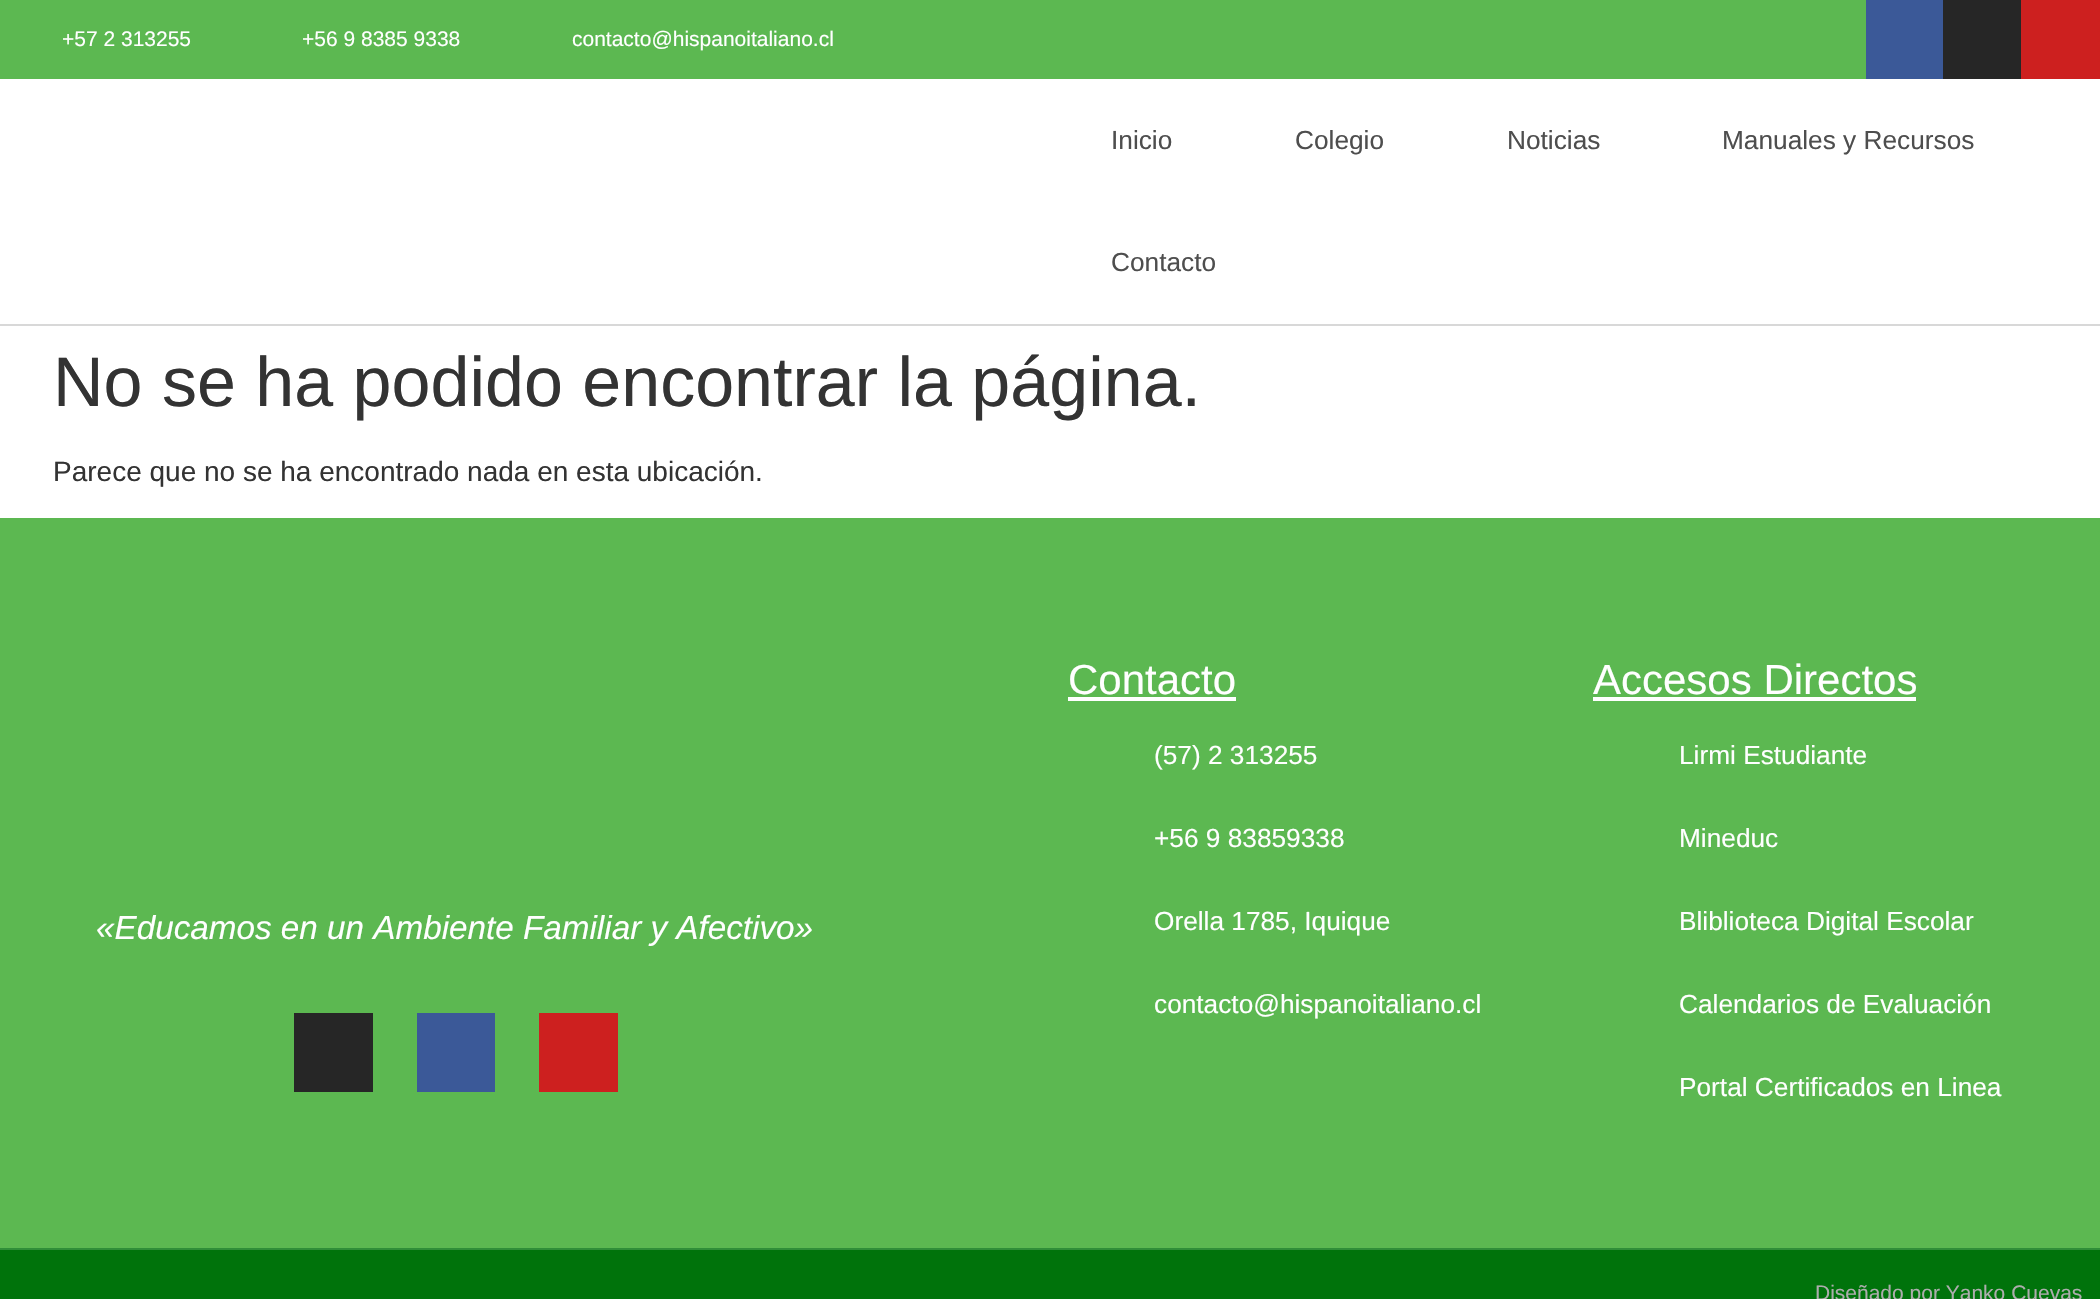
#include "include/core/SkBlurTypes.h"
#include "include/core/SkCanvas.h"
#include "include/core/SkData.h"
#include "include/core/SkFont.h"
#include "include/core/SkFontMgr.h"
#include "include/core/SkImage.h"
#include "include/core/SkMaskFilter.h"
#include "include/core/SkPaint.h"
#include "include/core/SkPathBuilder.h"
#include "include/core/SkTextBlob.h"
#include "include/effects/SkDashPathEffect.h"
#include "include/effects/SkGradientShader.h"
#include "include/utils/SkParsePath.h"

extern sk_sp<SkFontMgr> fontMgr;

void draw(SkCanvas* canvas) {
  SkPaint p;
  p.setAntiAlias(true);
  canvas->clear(SK_ColorWHITE);
  p.setColor(SkColorSetRGB(92, 184, 81));
  canvas->drawRect(SkRect::MakeLTRB(0, 0, 1866, 79), p);
  p.setColor(SkColorSetRGB(59, 89, 152));
  canvas->drawRect(SkRect::MakeLTRB(1866, 0, 1943, 79), p);
  p.setColor(SkColorSetRGB(38, 38, 38));
  canvas->drawRect(SkRect::MakeLTRB(1943, 0, 2021, 79), p);
  p.setColor(SkColorSetRGB(205, 32, 31));
  canvas->drawRect(SkRect::MakeLTRB(2021, 0, 2100, 79), p);
  p.setColor(SkColorSetRGB(216, 216, 216));
  canvas->drawRect(SkRect::MakeLTRB(0, 324, 2100, 326), p);
  p.setColor(SkColorSetRGB(92, 184, 81));
  canvas->drawRect(SkRect::MakeLTRB(0, 518, 2100, 1248), p);
  p.setColor(SkColorSetRGB(38, 38, 38));
  canvas->drawRect(SkRect::MakeLTRB(294, 1013, 373, 1092), p);
  p.setColor(SkColorSetRGB(59, 89, 152));
  canvas->drawRect(SkRect::MakeLTRB(417, 1013, 495, 1092), p);
  p.setColor(SkColorSetRGB(205, 32, 31));
  canvas->drawRect(SkRect::MakeLTRB(539, 1013, 618, 1092), p);
  p.setColor(SK_ColorWHITE);
  canvas->drawRect(SkRect::MakeLTRB(1068, 697, 1236, 701), p);
  canvas->drawRect(SkRect::MakeLTRB(1593, 697, 1916, 701), p);
  p.setColor(SkColorSetRGB(0, 115, 11));
  canvas->drawRect(SkRect::MakeLTRB(0, 1250, 2100, 1299), p);
  p.setColor(SkColorSetRGB(48, 142, 57));
  canvas->drawRect(SkRect::MakeLTRB(0, 1248, 2100, 1250), p);
  SkFont font1(fontMgr->matchFamilyStyle("Liberation Sans", SkFontStyle::Normal()), 21);
  font1.setSubpixel(true);
  p.setColor(SK_ColorWHITE);
  canvas->drawString("+57 2 313255", 62, 46, font1, p);
  canvas->drawString("+56 9 8385 9338", 302, 46, font1, p);
  canvas->drawString("contacto@hispanoitaliano.cl", 572, 46, font1, p);
  SkFont font2(fontMgr->matchFamilyStyle("Liberation Sans", SkFontStyle::Normal()), 26.25f);
  font2.setSubpixel(true);
  p.setColor(SkColorSetRGB(78, 78, 78));
  canvas->drawString("Inicio", 1111, 149, font2, p);
  canvas->drawString("Colegio", 1295, 149, font2, p);
  canvas->drawString("Noticias", 1507, 149, font2, p);
  canvas->drawString("Manuales y Recursos", 1722, 149, font2, p);
  canvas->drawString("Contacto", 1111, 271, font2, p);
  SkFont font3(fontMgr->matchFamilyStyle("Liberation Sans", SkFontStyle::Normal()), 70);
  font3.setSubpixel(true);
  p.setColor(SkColorSetRGB(51, 51, 51));
  canvas->drawString("No se ha podido encontrar la página.", 53, 406, font3, p);
  SkFont font4(fontMgr->matchFamilyStyle("Liberation Sans", SkFontStyle::Normal()), 28);
  font4.setSubpixel(true);
  canvas->drawString("Parece que no se ha encontrado nada en esta ubicación.", 53, 481, font4, p);
  SkFont font5(fontMgr->matchFamilyStyle("Liberation Sans", SkFontStyle::Italic()), 33.25f);
  font5.setSubpixel(true);
  p.setColor(SK_ColorWHITE);
  canvas->drawString("«Educamos en un Ambiente Familiar y Afectivo»", 96, 939, font5, p);
  SkFont font6(fontMgr->matchFamilyStyle("Liberation Sans", SkFontStyle::Normal()), 42);
  font6.setSubpixel(true);
  canvas->drawString("Contacto", 1068, 694, font6, p);
  canvas->drawString("(57) 2 313255", 1154, 764, font2, p);
  canvas->drawString("+56 9 83859338", 1154, 847, font2, p);
  canvas->drawString("Orella 1785, Iquique", 1154, 930, font2, p);
  canvas->drawString("contacto@hispanoitaliano.cl", 1154, 1013, font2, p);
  canvas->drawString("Accesos Directos", 1593, 694, font6, p);
  canvas->drawString("Lirmi Estudiante", 1679, 764, font2, p);
  canvas->drawString("Mineduc", 1679, 847, font2, p);
  canvas->drawString("Bliblioteca Digital Escolar", 1679, 930, font2, p);
  canvas->drawString("Calendarios de Evaluación", 1679, 1013, font2, p);
  canvas->drawString("Portal Certificados en Linea", 1679, 1096, font2, p);
  p.setColor(SkColorSetRGB(173, 173, 173));
  canvas->drawString("Diseñado por Yanko Cuevas", 1815, 1300, font1, p);
}
